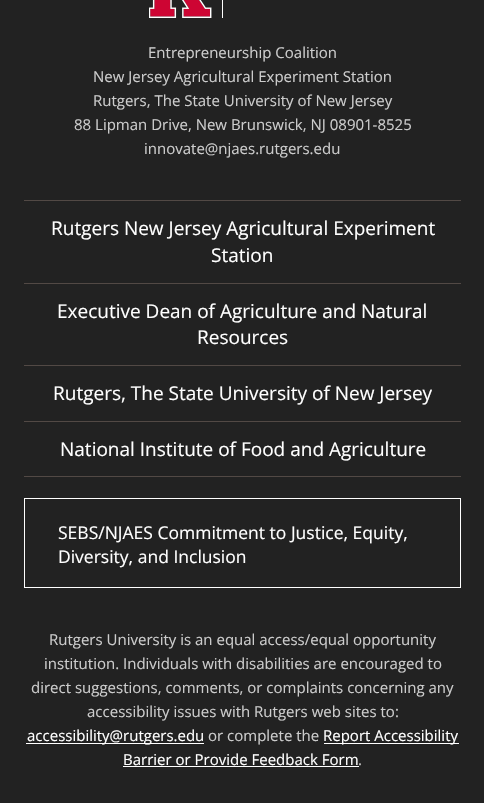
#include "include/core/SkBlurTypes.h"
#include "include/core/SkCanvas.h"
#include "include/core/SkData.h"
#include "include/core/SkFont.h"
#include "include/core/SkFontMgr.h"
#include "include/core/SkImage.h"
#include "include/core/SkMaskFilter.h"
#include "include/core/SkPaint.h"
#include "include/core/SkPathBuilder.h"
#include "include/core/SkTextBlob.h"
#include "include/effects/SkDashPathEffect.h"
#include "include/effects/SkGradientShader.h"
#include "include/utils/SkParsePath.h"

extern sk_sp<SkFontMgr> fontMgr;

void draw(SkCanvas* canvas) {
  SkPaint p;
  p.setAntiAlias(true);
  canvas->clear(SkColorSetRGB(34, 34, 34));
  canvas->drawImageRect(SkImages::DeferredFromEncodedData(SkData::MakeFromFileName("images/1.png")), SkRect::MakeLTRB(149, 0, 223, 18), SkSamplingOptions());
  p.setColor(SkColorSetRGB(82, 73, 69));
  canvas->drawRect(SkRect::MakeLTRB(24, 200, 461, 201), p);
  canvas->drawRect(SkRect::MakeLTRB(24, 283, 461, 284), p);
  canvas->drawRect(SkRect::MakeLTRB(24, 365, 461, 366), p);
  canvas->drawRect(SkRect::MakeLTRB(24, 421, 461, 422), p);
  canvas->drawRect(SkRect::MakeLTRB(24, 476, 461, 477), p);
  p.setStyle(SkPaint::kStroke_Style);
  p.setStrokeWidth(1);
  p.setColor(SK_ColorWHITE);
  canvas->drawRect(SkRect::MakeLTRB(24.5f, 498.5f, 460.5f, 587.5f), p);
  p.setStyle(SkPaint::kFill_Style);
  canvas->drawRect(SkRect::MakeLTRB(26, 743, 204, 744), p);
  canvas->drawRect(SkRect::MakeLTRB(324, 743, 459, 744), p);
  canvas->drawRect(SkRect::MakeLTRB(123, 766, 359, 767), p);
  SkFont font1(fontMgr->matchFamilyStyle("Open Sans", SkFontStyle::Normal()), 15);
  font1.setSubpixel(true);
  p.setColor(SkColorSetRGB(204, 204, 204));
  canvas->drawString("Entrepreneurship Coalition", 148, 58, font1, p);
  canvas->drawString("New Jersey Agricultural Experiment Station", 93, 82, font1, p);
  canvas->drawString("Rutgers, The State University of New Jersey", 93, 106, font1, p);
  canvas->drawString("88 Lipman Drive, New Brunswick, NJ 08901-8525", 74, 130, font1, p);
  canvas->drawString("innovate@njaes.rutgers.edu", 144, 154, font1, p);
  SkFont font2(fontMgr->matchFamilyStyle("Open Sans", SkFontStyle::Normal()), 19);
  font2.setSubpixel(true);
  p.setColor(SK_ColorWHITE);
  canvas->drawString("Rutgers New Jersey Agricultural Experiment", 51, 235, font2, p);
  canvas->drawString("Station", 211, 262, font2, p);
  canvas->drawString("Executive Dean of Agriculture and Natural", 57, 318, font2, p);
  canvas->drawString("Resources", 197, 344, font2, p);
  canvas->drawString("Rutgers, The State University of New Jersey", 53, 400, font2, p);
  canvas->drawString("National Institute of Food and Agriculture", 60, 456, font2, p);
  SkFont font3(fontMgr->matchFamilyStyle("Open Sans", SkFontStyle::Normal()), 17.5f);
  font3.setSubpixel(true);
  canvas->drawString("SEBS/NJAES Commitment to Justice, Equity,", 58, 539, font3, p);
  canvas->drawString("Diversity, and Inclusion", 58, 563, font3, p);
  p.setColor(SkColorSetRGB(204, 204, 204));
  canvas->drawString("Rutgers University is an equal access/equal opportunity", 49, 645, font1, p);
  canvas->drawString("institution. Individuals with disabilities are encouraged to", 44, 669, font1, p);
  canvas->drawString("direct suggestions, comments, or complaints concerning any", 31, 693, font1, p);
  canvas->drawString("accessibility issues with Rutgers web sites to:", 87, 717, font1, p);
  p.setColor(SK_ColorWHITE);
  canvas->drawString("accessibility@rutgers.edu", 27, 741, font1, p);
  p.setColor(SkColorSetRGB(204, 204, 204));
  canvas->drawString("or complete the", 208, 741, font1, p);
  p.setColor(SK_ColorWHITE);
  canvas->drawString("Report Accessibility", 323, 741, font1, p);
  canvas->drawString("Barrier or Provide Feedback Form", 123, 765, font1, p);
  p.setColor(SkColorSetRGB(204, 204, 204));
  canvas->drawString(".", 358, 765, font1, p);
}
